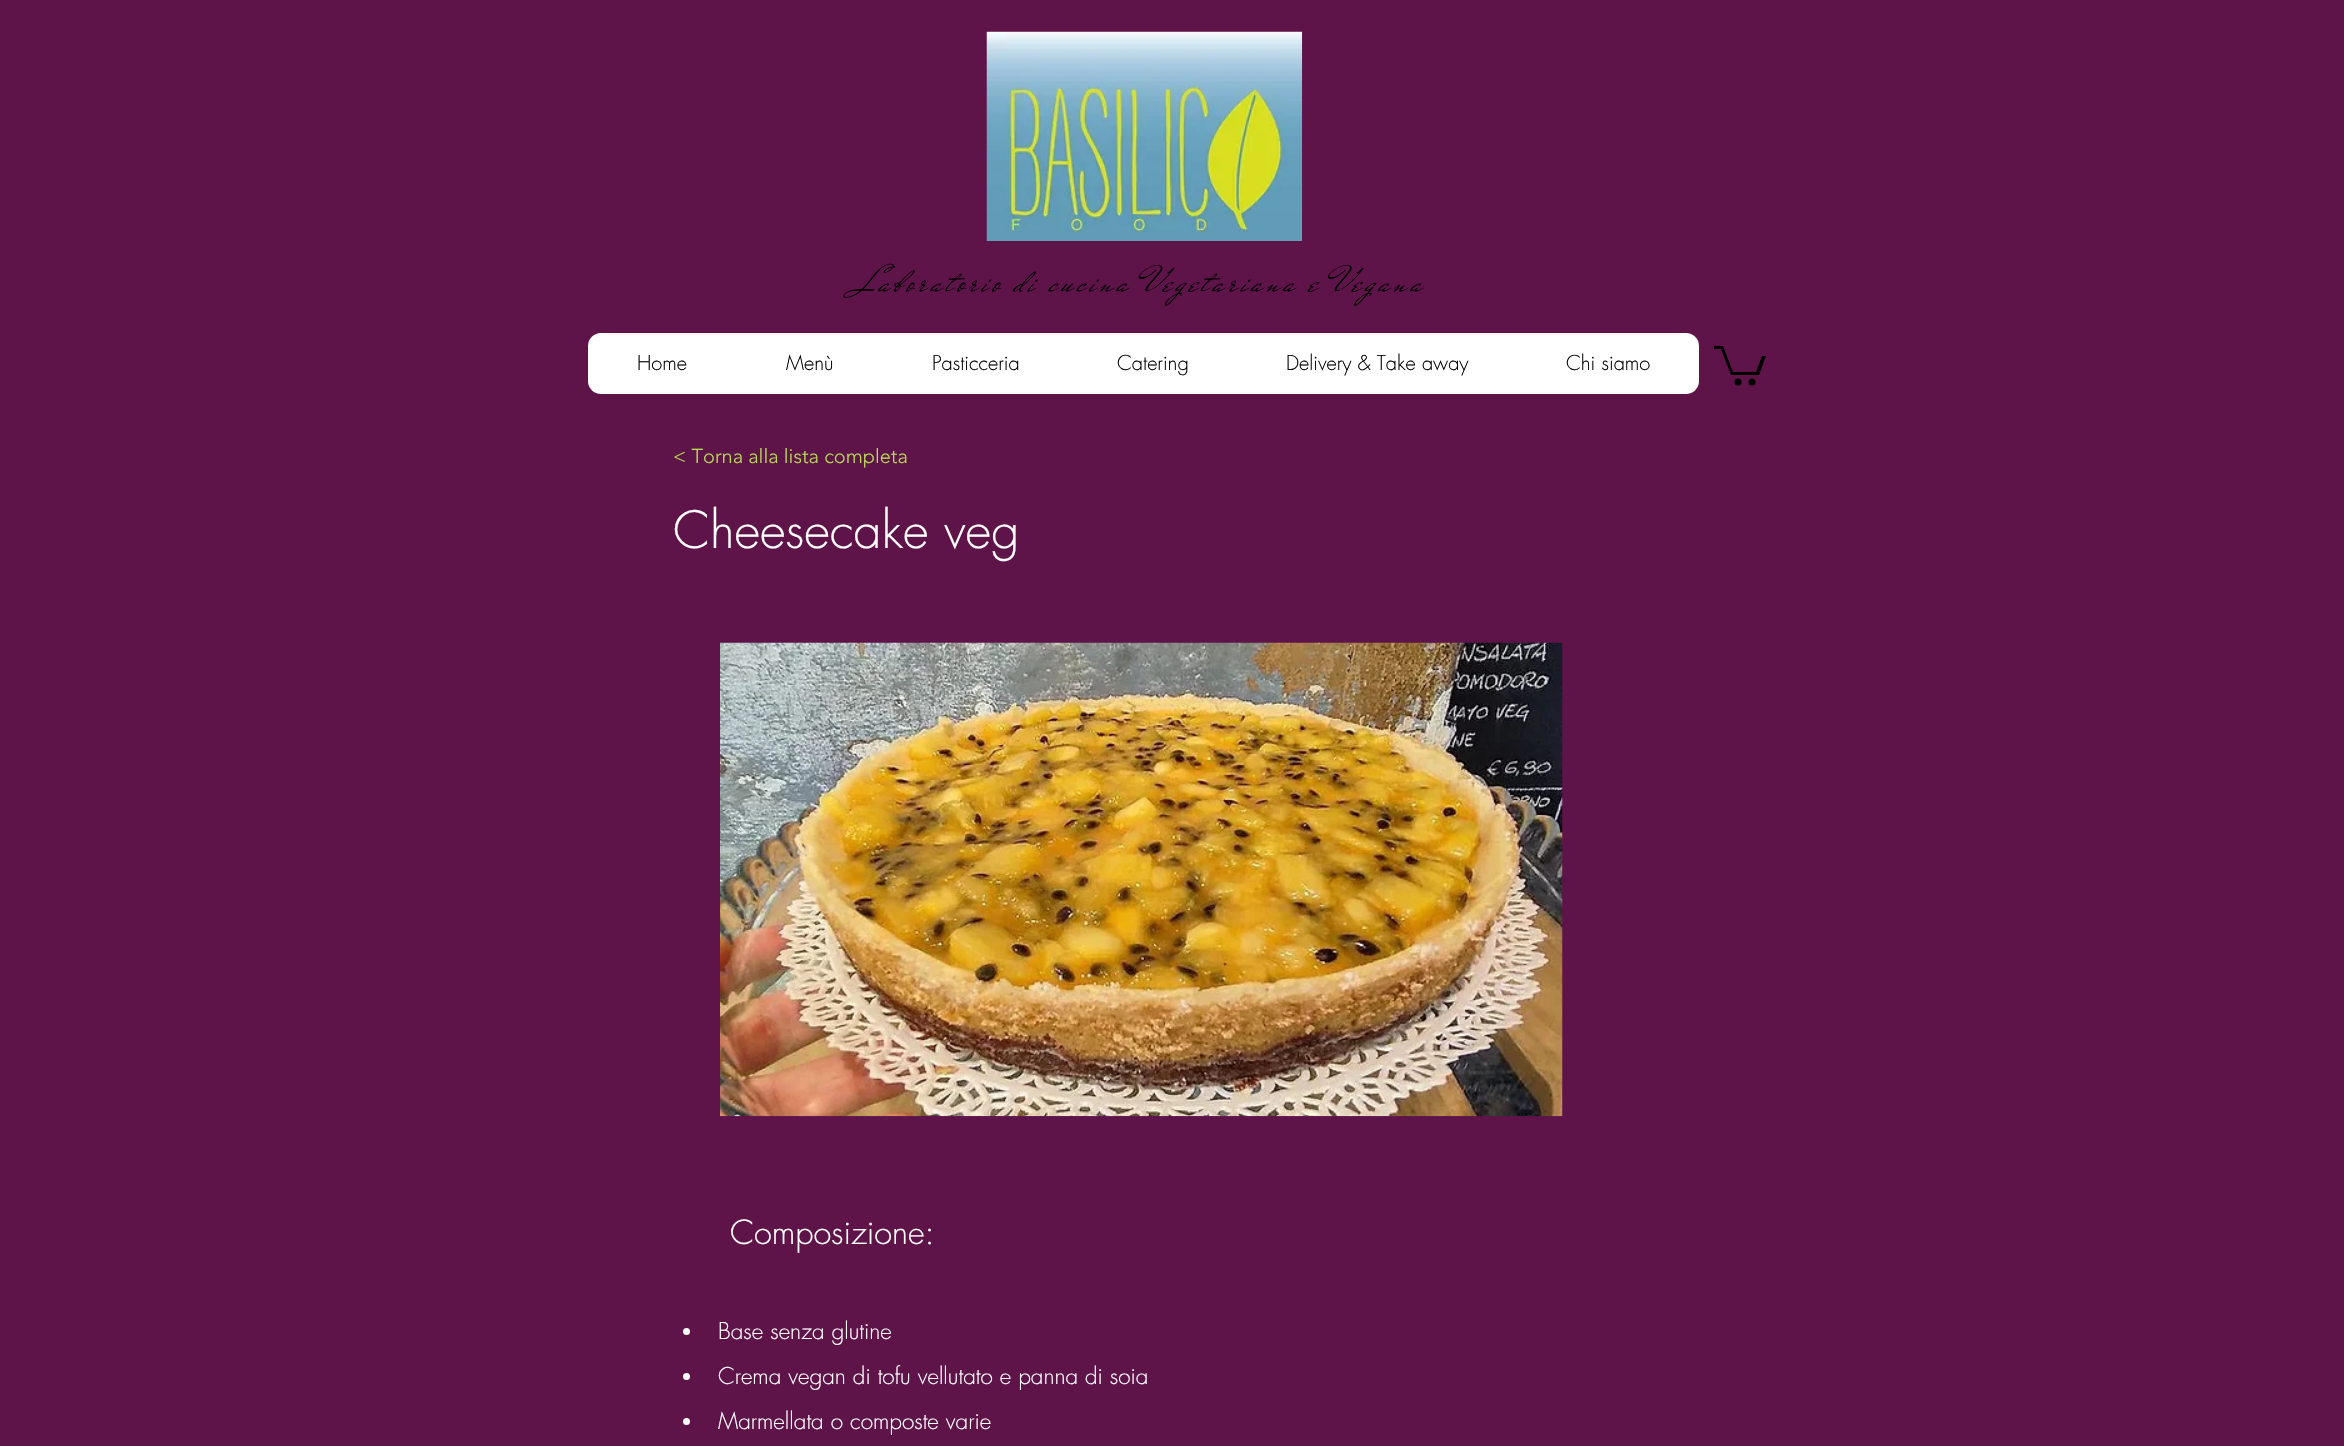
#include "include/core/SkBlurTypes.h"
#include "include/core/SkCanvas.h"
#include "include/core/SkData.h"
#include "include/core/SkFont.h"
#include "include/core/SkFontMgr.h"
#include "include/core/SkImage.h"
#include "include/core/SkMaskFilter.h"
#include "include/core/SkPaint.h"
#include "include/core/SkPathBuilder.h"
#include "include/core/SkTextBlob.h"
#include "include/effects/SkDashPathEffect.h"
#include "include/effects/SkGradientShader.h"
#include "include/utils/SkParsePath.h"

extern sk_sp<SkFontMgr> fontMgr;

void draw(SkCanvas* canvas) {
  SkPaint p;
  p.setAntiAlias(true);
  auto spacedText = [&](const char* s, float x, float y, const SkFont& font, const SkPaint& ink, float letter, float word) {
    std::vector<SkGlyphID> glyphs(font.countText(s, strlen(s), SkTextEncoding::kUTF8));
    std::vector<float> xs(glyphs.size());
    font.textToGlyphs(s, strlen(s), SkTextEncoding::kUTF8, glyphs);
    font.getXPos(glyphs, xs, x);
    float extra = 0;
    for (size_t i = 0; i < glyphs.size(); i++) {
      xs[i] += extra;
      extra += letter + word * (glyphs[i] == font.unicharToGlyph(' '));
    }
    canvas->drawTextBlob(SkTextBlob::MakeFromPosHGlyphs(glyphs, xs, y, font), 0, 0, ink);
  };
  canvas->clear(SkColorSetRGB(94, 20, 73));
  canvas->drawImageRect(SkImages::DeferredFromEncodedData(SkData::MakeFromFileName("images/1.png")), SkRect::MakeLTRB(986, 31, 1303, 241), SkSamplingOptions());
  p.setColor(SK_ColorWHITE);
  canvas->drawRoundRect(SkRect::MakeLTRB(588, 333, 1699, 394), 13, 13, p);
  p.setColor(SK_ColorBLACK);
  canvas->drawPath(SkPathBuilder().moveTo(1766, 356).lineTo(1759, 375).lineTo(1731, 375).lineTo(1721, 349).lineTo(1714, 349).lineTo(1714, 346).lineTo(1723, 346).lineTo(1733, 372).lineTo(1756, 372).lineTo(1762, 356).detach(), p);
  canvas->drawCircle(1752, 382, 3.5f, p);
  canvas->drawCircle(1738, 382, 3.5f, p);
  canvas->drawImageRect(SkImages::DeferredFromEncodedData(SkData::MakeFromFileName("images/2.png")), SkRect::MakeLTRB(720, 642, 1563, 1117), SkSamplingOptions());
  p.setColor(SK_ColorWHITE);
  canvas->drawCircle(686.5f, 1331.5f, 3.5f, p);
  canvas->drawCircle(686.5f, 1376.5f, 3.5f, p);
  canvas->drawCircle(686.5f, 1421.5f, 3.5f, p);
  SkFont font1(fontMgr->matchFamilyStyle("Mr De Haviland", SkFontStyle::Italic()), 37.5f);
  font1.setSubpixel(true);
  p.setColor(SK_ColorBLACK);
  spacedText("Laboratorio di cucina Vegetariana e Vegana", 856, 291, font1, p, 3.75f, 0);
  SkFont font2(fontMgr->matchFamilyStyle("futura", SkFontStyle(300, SkFontStyle::kNormal_Width, SkFontStyle::kUpright_Slant)), 20);
  font2.setSubpixel(true);
  canvas->drawString("Home", 637, 370, font2, p);
  canvas->drawString("Menù", 786, 370, font2, p);
  canvas->drawString("Pasticceria", 932, 370, font2, p);
  canvas->drawString("Catering", 1117, 370, font2, p);
  canvas->drawString("Delivery & Take away", 1286, 370, font2, p);
  canvas->drawString("Chi siamo", 1566, 370, font2, p);
  SkFont font3(fontMgr->matchFamilyStyle("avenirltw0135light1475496", SkFontStyle(300, SkFontStyle::kNormal_Width, SkFontStyle::kUpright_Slant)), 20);
  font3.setSubpixel(true);
  p.setColor(SkColorSetRGB(186, 218, 85));
  canvas->drawString("< Torna alla lista completa", 673, 463, font3, p);
  SkFont font4(fontMgr->matchFamilyStyle("futura", SkFontStyle(300, SkFontStyle::kNormal_Width, SkFontStyle::kUpright_Slant)), 50);
  font4.setSubpixel(true);
  p.setColor(SK_ColorWHITE);
  canvas->drawString("Cheesecake veg", 673, 548, font4, p);
  SkFont font5(fontMgr->matchFamilyStyle("futura", SkFontStyle(300, SkFontStyle::kNormal_Width, SkFontStyle::kUpright_Slant)), 32.5f);
  font5.setSubpixel(true);
  canvas->drawString("Composizione:", 730, 1244, font5, p);
  SkFont font6(fontMgr->matchFamilyStyle("futura", SkFontStyle(300, SkFontStyle::kNormal_Width, SkFontStyle::kUpright_Slant)), 22.5f);
  font6.setSubpixel(true);
  canvas->drawString("Base senza glutine", 718, 1339, font6, p);
  canvas->drawString("Crema vegan di tofu vellutato e panna di soia", 718, 1384, font6, p);
  canvas->drawString("Marmellata o composte varie", 718, 1429, font6, p);
}
